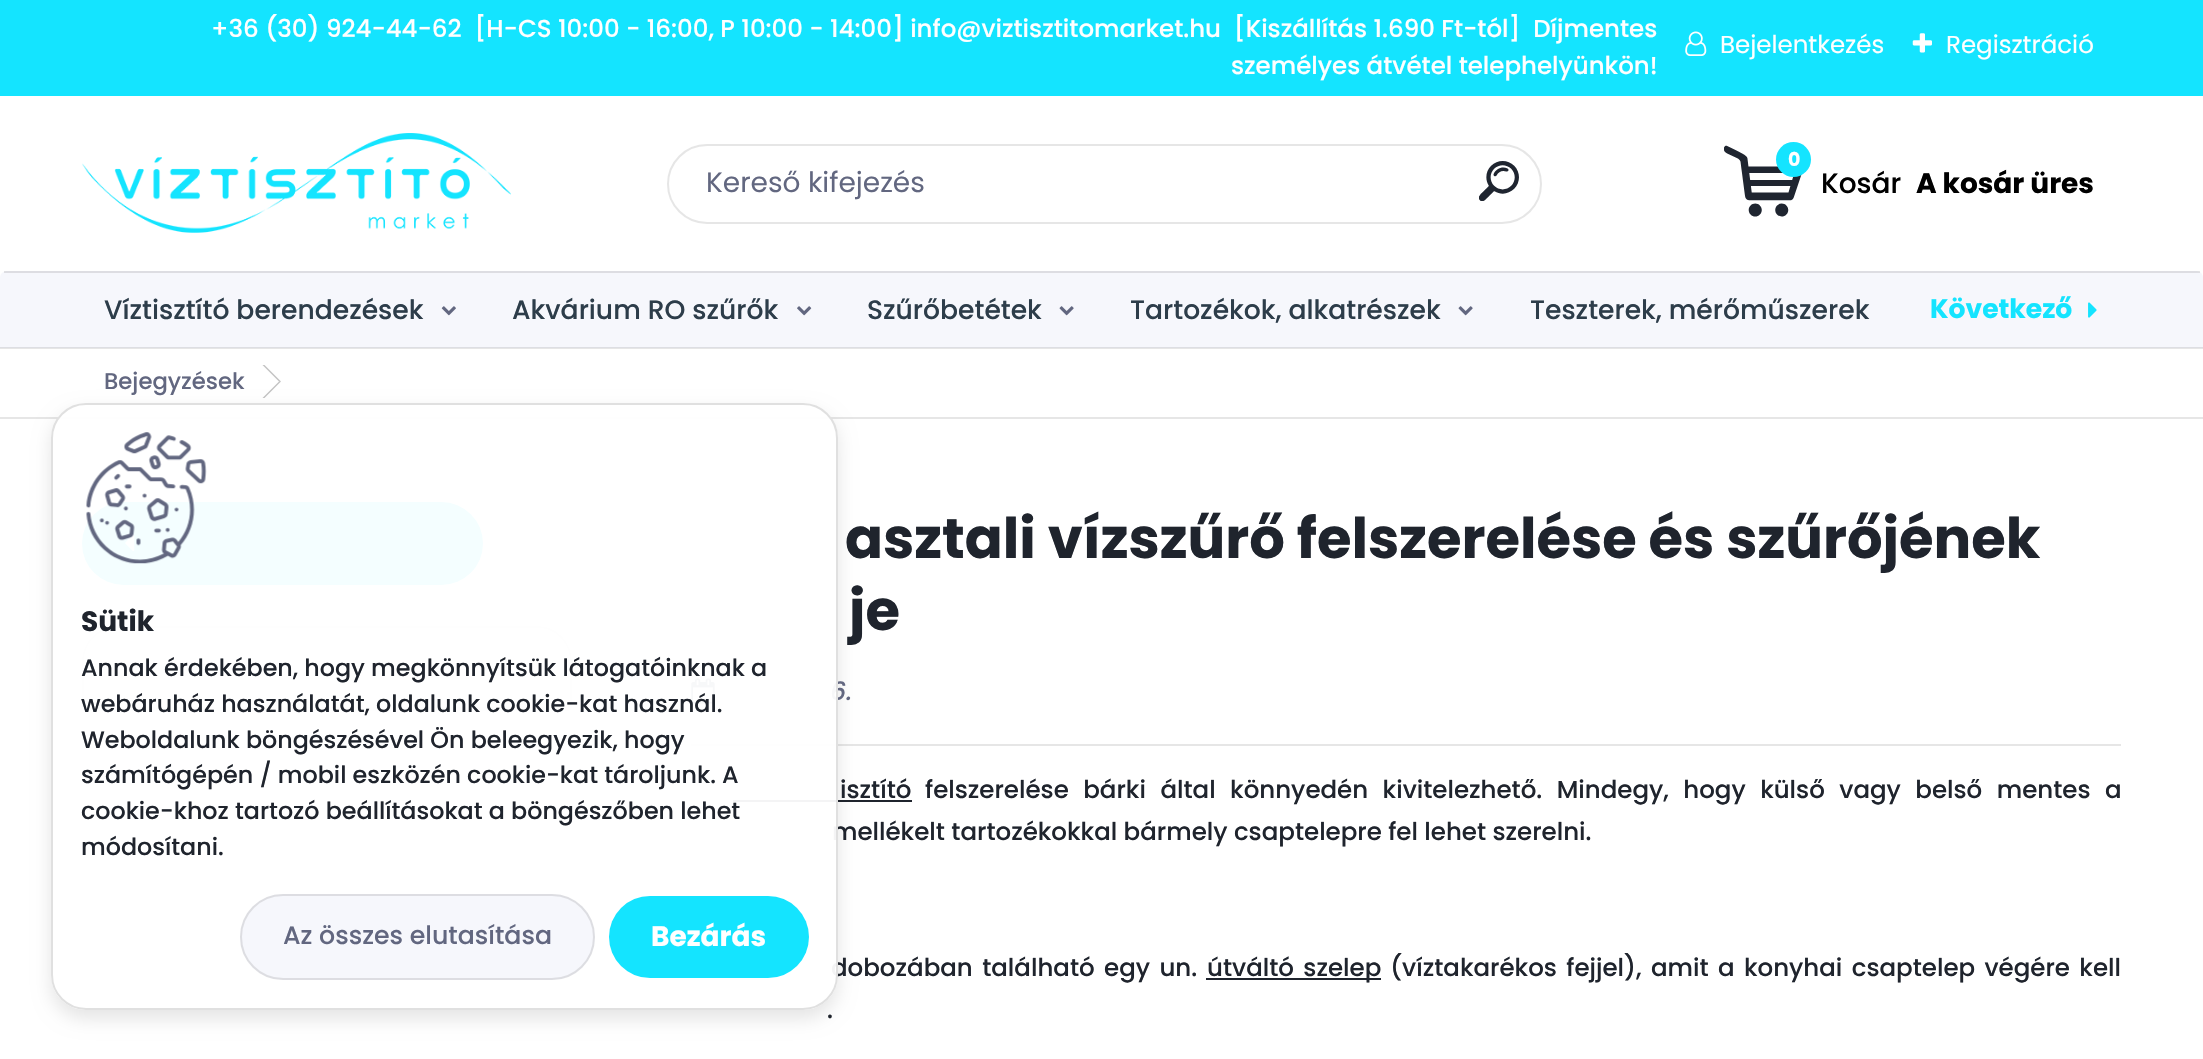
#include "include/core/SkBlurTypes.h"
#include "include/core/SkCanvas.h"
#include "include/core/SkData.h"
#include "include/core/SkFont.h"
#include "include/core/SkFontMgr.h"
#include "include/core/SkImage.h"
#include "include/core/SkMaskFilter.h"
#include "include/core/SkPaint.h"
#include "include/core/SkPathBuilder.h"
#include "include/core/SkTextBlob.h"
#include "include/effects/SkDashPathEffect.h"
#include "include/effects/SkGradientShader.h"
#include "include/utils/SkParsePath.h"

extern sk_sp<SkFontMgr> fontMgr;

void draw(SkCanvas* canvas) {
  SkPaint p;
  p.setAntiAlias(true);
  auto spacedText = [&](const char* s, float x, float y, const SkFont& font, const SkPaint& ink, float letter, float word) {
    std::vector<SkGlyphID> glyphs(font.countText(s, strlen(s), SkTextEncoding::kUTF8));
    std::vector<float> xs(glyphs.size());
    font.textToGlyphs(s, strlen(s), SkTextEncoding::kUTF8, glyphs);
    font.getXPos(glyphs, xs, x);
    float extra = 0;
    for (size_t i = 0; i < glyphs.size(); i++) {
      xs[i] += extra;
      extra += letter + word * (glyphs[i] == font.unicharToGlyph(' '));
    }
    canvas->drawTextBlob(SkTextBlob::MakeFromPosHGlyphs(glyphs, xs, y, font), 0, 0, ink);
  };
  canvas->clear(SK_ColorWHITE);
  p.setColor(SkColorSetRGB(230, 230, 230));
  canvas->drawRect(SkRect::MakeLTRB(0, 348, 2203, 349), p);
  p.setColor(SkColorSetRGB(20, 228, 255));
  canvas->drawRect(SkRect::MakeLTRB(0, 0, 2203, 96), p);
  canvas->drawImageRect(SkImages::DeferredFromEncodedData(SkData::MakeFromFileName("images/1.png")), SkRect::MakeLTRB(1685, 31, 1707, 56), SkSamplingOptions());
  canvas->drawImageRect(SkImages::DeferredFromEncodedData(SkData::MakeFromFileName("images/2.png")), SkRect::MakeLTRB(1912, 33, 1932, 53), SkSamplingOptions());
  canvas->drawImageRect(SkImages::DeferredFromEncodedData(SkData::MakeFromFileName("images/3.png")), SkRect::MakeLTRB(82, 133, 511, 233), SkSamplingOptions());
  p.setStyle(SkPaint::kStroke_Style);
  p.setStrokeWidth(2);
  p.setColor(SkColorSetRGB(230, 230, 230));
  canvas->drawRoundRect(SkRect::MakeLTRB(668, 145, 1541, 223), 39, 39, p);
  canvas->drawImageRect(SkImages::DeferredFromEncodedData(SkData::MakeFromFileName("images/4.png")), SkRect::MakeLTRB(1479, 161, 1519, 201), SkSamplingOptions());
  canvas->drawImageRect(SkImages::DeferredFromEncodedData(SkData::MakeFromFileName("images/5.png")), SkRect::MakeLTRB(1724, 145, 1802, 217), SkSamplingOptions());
  p.setStyle(SkPaint::kFill_Style);
  p.setColor(SkColorSetRGB(20, 228, 255));
  canvas->drawCircle(1793.5f, 159.5f, 17.5f, p);
  p.setColor(SkColorSetRGB(246, 247, 252));
  canvas->drawPath(SkPathBuilder().moveTo(7, 271).lineTo(2196, 271).cubicTo(2200, 271, 2203, 274, 2203, 278).lineTo(2203, 348).lineTo(0, 348).lineTo(0, 278).cubicTo(0, 274, 3, 271, 7, 271).close().detach(), p);
  p.setColor(SkColorSetRGB(221, 222, 227));
  canvas->drawRect(SkRect::MakeLTRB(0, 347, 2203, 348), p);
  p.setColor(SkColorSetARGB(26, 0, 0, 0));
  canvas->drawRect(SkRect::MakeLTRB(4, 271, 2200, 273), p);
  canvas->drawImageRect(SkImages::DeferredFromEncodedData(SkData::MakeFromFileName("images/6.png")), SkRect::MakeLTRB(441, 306, 456, 316), SkSamplingOptions());
  canvas->drawImageRect(SkImages::DeferredFromEncodedData(SkData::MakeFromFileName("images/7.png")), SkRect::MakeLTRB(797, 306, 812, 316), SkSamplingOptions());
  canvas->drawImageRect(SkImages::DeferredFromEncodedData(SkData::MakeFromFileName("images/8.png")), SkRect::MakeLTRB(1059, 306, 1074, 316), SkSamplingOptions());
  canvas->drawImageRect(SkImages::DeferredFromEncodedData(SkData::MakeFromFileName("images/8.png")), SkRect::MakeLTRB(1458, 306, 1473, 316), SkSamplingOptions());
  canvas->drawImageRect(SkImages::DeferredFromEncodedData(SkData::MakeFromFileName("images/9.png")), SkRect::MakeLTRB(2088, 302, 2097, 318), SkSamplingOptions());
  p.setColor(SkColorSetRGB(230, 230, 230));
  canvas->drawRect(SkRect::MakeLTRB(0, 417, 2203, 419), p);
  p.setColor(SkColorSetRGB(195, 195, 195));
  canvas->drawPath(SkPathBuilder().moveTo(262.5f, 365).lineTo(264.5f, 365).lineTo(281, 381.5f).lineTo(279, 381.5f).close().detach(), p);
  p.setColor(SkColorSetARGB(77, 55, 55, 55));
  canvas->drawPath(SkPathBuilder().moveTo(279, 381.5f).lineTo(281, 381.5f).lineTo(264.5f, 398).lineTo(262.5f, 398).close().detach(), p);
  p.setColor(SkColorSetRGB(20, 228, 255));
  canvas->drawRoundRect(SkRect::MakeLTRB(82, 502, 483, 585), 41.5f, 41.5f, p);
  canvas->drawImageRect(SkImages::DeferredFromEncodedData(SkData::MakeFromFileName("images/10.png")), SkRect::MakeLTRB(125, 535, 135, 551), SkSamplingOptions());
  p.setColor(SkColorSetRGB(230, 230, 230));
  canvas->drawPath(SkPathBuilder(SkPathFillType::kEvenOdd).moveTo(117, 626).lineTo(537, 626).cubicTo(557, 626, 572, 642, 572, 662).lineTo(572, 707).lineTo(82, 707).lineTo(82, 662).cubicTo(82, 642, 98, 626, 117, 626).close().moveTo(117, 628).lineTo(537, 628).cubicTo(556, 628, 570, 643, 570, 662).lineTo(570, 707).lineTo(84, 707).lineTo(84, 662).cubicTo(84, 643, 99, 628, 117, 628).close().detach(), p);
  canvas->drawPath(SkPathBuilder().moveTo(82, 707).lineTo(572, 707).cubicTo(572, 709, 570, 711, 568, 711).lineTo(86, 711).cubicTo(84, 711, 82, 709, 82, 707).close().detach(), p);
  canvas->drawRect(SkRect::MakeLTRB(691, 744, 2121, 746), p);
  canvas->drawImageRect(SkImages::DeferredFromEncodedData(SkData::MakeFromFileName("images/11.png")), SkRect::MakeLTRB(691, 678, 715, 704), SkSamplingOptions());
  p.setColor(SkColorSetRGB(31, 36, 45));
  canvas->drawRect(SkRect::MakeLTRB(733, 800, 912, 802), p);
  canvas->drawRect(SkRect::MakeLTRB(1206, 978, 1381, 980), p);
  canvas->save();
  canvas->clipPath(SkPathBuilder(SkPathFillType::kEvenOdd).moveTo(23, 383).lineTo(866, 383).lineTo(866, 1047).lineTo(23, 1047).close().moveTo(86, 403).lineTo(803, 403).cubicTo(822.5f, 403, 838, 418.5f, 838, 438).lineTo(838, 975).cubicTo(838, 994.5f, 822.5f, 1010, 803, 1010).lineTo(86, 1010).cubicTo(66.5f, 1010, 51, 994.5f, 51, 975).lineTo(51, 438).cubicTo(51, 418.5f, 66.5f, 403, 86, 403).close().detach(), true);
  p.setColor(SkColorSetARGB(26, 0, 0, 0));
  p.setMaskFilter(SkMaskFilter::MakeBlur(kNormal_SkBlurStyle, 9));
  canvas->drawRoundRect(SkRect::MakeLTRB(51, 411, 838, 1019), 35, 35, p);
  p.setMaskFilter(nullptr);
  canvas->restore();
  SkFont font1(fontMgr->matchFamilyStyle("Poppins", SkFontStyle(500, SkFontStyle::kNormal_Width, SkFontStyle::kUpright_Slant)), 24.5f);
  font1.setSubpixel(true);
  p.setColor(SK_ColorWHITE);
  canvas->drawString("+36 (30) 924-44-62  [H-CS 10:00 - 16:00, P 10:00 - 14:00] info@viztisztitomarket.hu  [Kiszállítás 1.690 Ft-tól]  Díjmentes", 211, 37, font1, p);
  canvas->drawString("személyes átvétel telephelyünkön!", 1231, 74, font1, p);
  SkFont font2(fontMgr->matchFamilyStyle("Poppins", SkFontStyle::Normal()), 24.5f);
  font2.setSubpixel(true);
  canvas->drawString("Bejelentkezés", 1720, 53, font2, p);
  canvas->drawString("Regisztráció", 1946, 53, font2, p);
  SkFont font3(fontMgr->matchFamilyStyle("Poppins", SkFontStyle::Normal()), 28);
  font3.setSubpixel(true);
  p.setColor(SkColorSetRGB(98, 103, 128));
  canvas->drawString("Kereső kifejezés", 706, 192, font3, p);
  SkFont font4(fontMgr->matchFamilyStyle("Poppins", SkFontStyle::Bold()), 19);
  font4.setSubpixel(true);
  p.setColor(SK_ColorWHITE);
  canvas->drawString("0", 1788, 166, font4, p);
  SkFont font5(fontMgr->matchFamilyStyle("Poppins", SkFontStyle(500, SkFontStyle::kNormal_Width, SkFontStyle::kUpright_Slant)), 28);
  font5.setSubpixel(true);
  p.setColor(SK_ColorBLACK);
  canvas->drawString("Kosár", 1821, 193, font5, p);
  SkFont font6(fontMgr->matchFamilyStyle("Poppins", SkFontStyle::Bold()), 28);
  font6.setSubpixel(true);
  canvas->drawString("A kosár üres", 1916, 193, font6, p);
  SkFont font7(fontMgr->matchFamilyStyle("Poppins", SkFontStyle(500, SkFontStyle::kNormal_Width, SkFontStyle::kUpright_Slant)), 26.6f);
  font7.setSubpixel(true);
  p.setColor(SkColorSetRGB(45, 61, 74));
  canvas->drawString("Víztisztító berendezések", 104, 319, font7, p);
  canvas->drawString("Akvárium RO szűrők", 512, 319, font7, p);
  canvas->drawString("Szűrőbetétek", 867, 319, font7, p);
  canvas->drawString("Tartozékok, alkatrészek", 1130, 319, font7, p);
  canvas->drawString("Teszterek, mérőműszerek", 1530, 319, font7, p);
  SkFont font8(fontMgr->matchFamilyStyle("Poppins", SkFontStyle::Bold()), 26.6f);
  font8.setSubpixel(true);
  p.setColor(SkColorSetRGB(20, 228, 255));
  canvas->drawString("Következő", 1930, 318, font8, p);
  SkFont font9(fontMgr->matchFamilyStyle("Poppins", SkFontStyle(500, SkFontStyle::kNormal_Width, SkFontStyle::kUpright_Slant)), 22.75f);
  font9.setSubpixel(true);
  p.setColor(SkColorSetRGB(98, 103, 128));
  canvas->drawString("Bejegyzések", 104, 389, font9, p);
  SkFont font10(fontMgr->matchFamilyStyle("Poppins", SkFontStyle::Bold()), 56);
  font10.setSubpixel(true);
  p.setColor(SkColorSetRGB(31, 36, 45));
  canvas->drawString("asztali vízszűrő felszerelése és szűrőjének", 845, 558, font10, p);
  canvas->drawString("je", 849, 630, font10, p);
  SkFont font11(fontMgr->matchFamilyStyle("Poppins", SkFontStyle(500, SkFontStyle::kNormal_Width, SkFontStyle::kItalic_Slant)), 25.25f);
  font11.setSubpixel(true);
  p.setColor(SkColorSetRGB(98, 103, 128));
  canvas->drawString("6.", 830, 700, font11, p);
  p.setColor(SkColorSetRGB(31, 36, 45));
  spacedText("isztító", 840, 798, font1, p, 0, 8.1f);
  spacedText("felszerelése bárki által könnyedén kivitelezhető. Mindegy, hogy külső vagy belső mentes a", 925, 798, font1, p, 0, 8.1f);
  canvas->drawString("mellékelt tartozékokkal bármely csaptelepre fel lehet szerelni.", 832, 840, font1, p);
  spacedText("dobozában található egy un.", 831, 976, font1, p, 0, 3);
  spacedText("útváltó szelep", 1207, 976, font1, p, 0, 3);
  spacedText("(víztakarékos fejjel), amit a konyhai csaptelep végére kell", 1390, 976, font1, p, 0, 3);
  canvas->drawString(".", 827, 1018, font1, p);
  p.setColor(SkColorSetARGB(242, 255, 255, 255));
  canvas->drawRoundRect(SkRect::MakeLTRB(52, 404, 837, 1009), 34, 34, p);
  p.setStyle(SkPaint::kStroke_Style);
  p.setColor(SkColorSetRGB(224, 224, 224));
  canvas->drawRoundRect(SkRect::MakeLTRB(52, 404, 837, 1009), 34, 34, p);
  canvas->drawImageRect(SkImages::DeferredFromEncodedData(SkData::MakeFromFileName("images/12.png")), SkRect::MakeLTRB(86, 432, 207, 564), SkSamplingOptions());
  p.setStyle(SkPaint::kFill_Style);
  p.setColor(SkColorSetRGB(31, 36, 45));
  canvas->drawString("Sütik", 81, 631, font6, p);
  SkFont font12(fontMgr->matchFamilyStyle("Poppins", SkFontStyle(500, SkFontStyle::kNormal_Width, SkFontStyle::kUpright_Slant)), 23.8f);
  font12.setSubpixel(true);
  canvas->drawString("Annak érdekében, hogy megkönnyítsük látogatóinknak a", 81, 676, font12, p);
  canvas->drawString("webáruház használatát, oldalunk cookie-kat használ.", 81, 712, font12, p);
  canvas->drawString("Weboldalunk böngészésével Ön beleegyezik, hogy", 81, 748, font12, p);
  canvas->drawString("számítógépén / mobil eszközén cookie-kat tároljunk. A", 81, 783, font12, p);
  canvas->drawString("cookie-khoz tartozó beállításokat a böngészőben lehet", 81, 819, font12, p);
  canvas->drawString("módosítani.", 81, 855, font12, p);
  p.setColor(SkColorSetRGB(246, 247, 252));
  canvas->drawRoundRect(SkRect::MakeLTRB(240, 894, 595, 980), 43, 43, p);
  p.setStyle(SkPaint::kStroke_Style);
  p.setColor(SkColorSetARGB(26, 0, 0, 0));
  canvas->drawRoundRect(SkRect::MakeLTRB(241, 895, 594, 979), 42, 42, p);
  SkFont font13(fontMgr->matchFamilyStyle("Poppins", SkFontStyle(500, SkFontStyle::kNormal_Width, SkFontStyle::kUpright_Slant)), 25.25f);
  font13.setSubpixel(true);
  p.setStyle(SkPaint::kFill_Style);
  p.setColor(SkColorSetRGB(98, 103, 128));
  canvas->drawString("Az összes elutasítása", 283, 944, font13, p);
  p.setColor(SkColorSetRGB(20, 228, 255));
  canvas->drawRoundRect(SkRect::MakeLTRB(609, 896, 809, 978), 41, 41, p);
  p.setColor(SK_ColorWHITE);
  canvas->drawString("Bezárás", 651, 946, font6, p);
}
